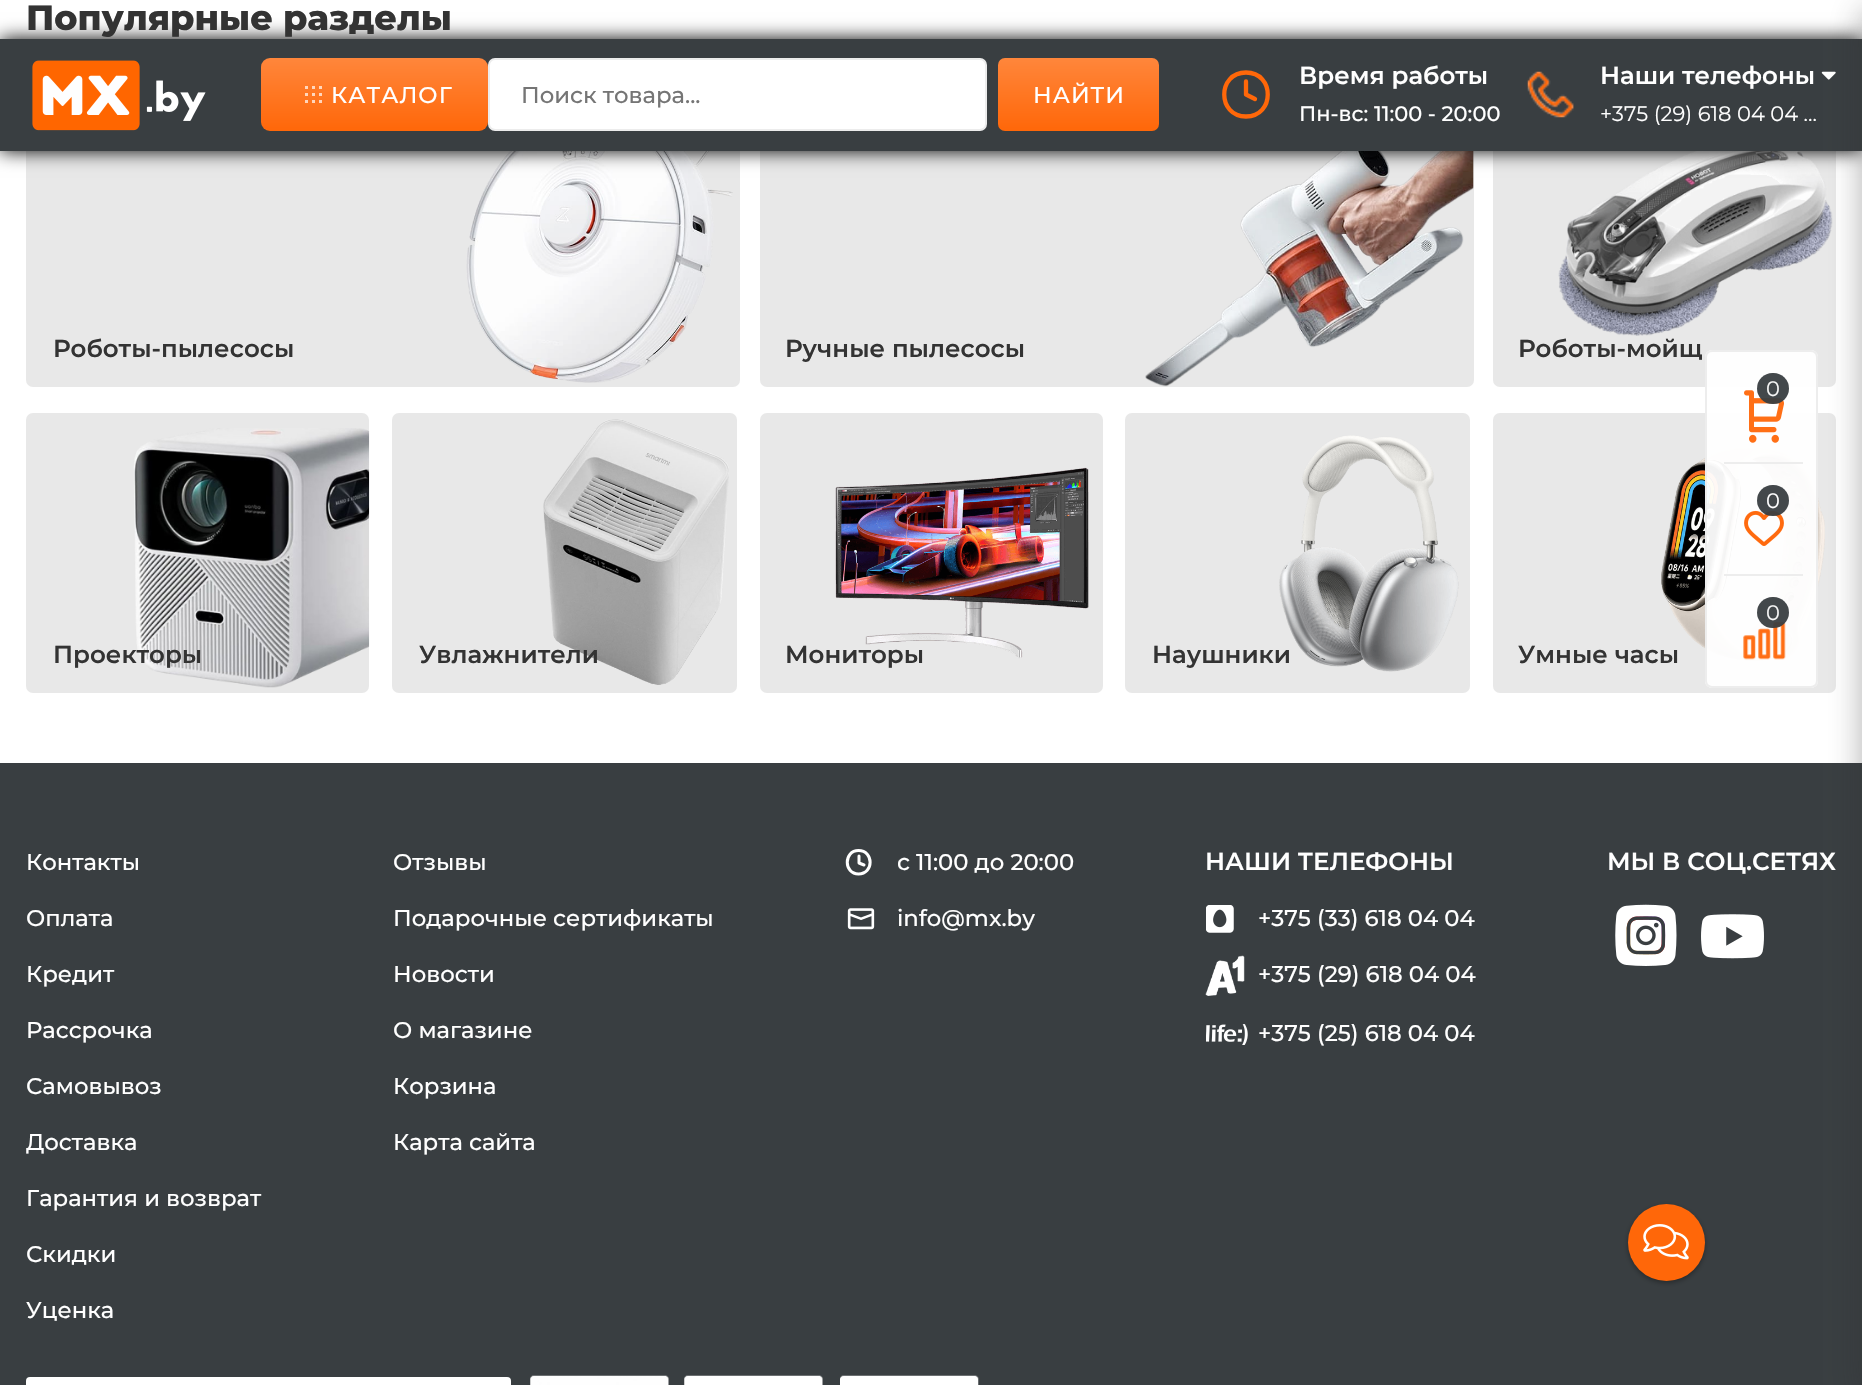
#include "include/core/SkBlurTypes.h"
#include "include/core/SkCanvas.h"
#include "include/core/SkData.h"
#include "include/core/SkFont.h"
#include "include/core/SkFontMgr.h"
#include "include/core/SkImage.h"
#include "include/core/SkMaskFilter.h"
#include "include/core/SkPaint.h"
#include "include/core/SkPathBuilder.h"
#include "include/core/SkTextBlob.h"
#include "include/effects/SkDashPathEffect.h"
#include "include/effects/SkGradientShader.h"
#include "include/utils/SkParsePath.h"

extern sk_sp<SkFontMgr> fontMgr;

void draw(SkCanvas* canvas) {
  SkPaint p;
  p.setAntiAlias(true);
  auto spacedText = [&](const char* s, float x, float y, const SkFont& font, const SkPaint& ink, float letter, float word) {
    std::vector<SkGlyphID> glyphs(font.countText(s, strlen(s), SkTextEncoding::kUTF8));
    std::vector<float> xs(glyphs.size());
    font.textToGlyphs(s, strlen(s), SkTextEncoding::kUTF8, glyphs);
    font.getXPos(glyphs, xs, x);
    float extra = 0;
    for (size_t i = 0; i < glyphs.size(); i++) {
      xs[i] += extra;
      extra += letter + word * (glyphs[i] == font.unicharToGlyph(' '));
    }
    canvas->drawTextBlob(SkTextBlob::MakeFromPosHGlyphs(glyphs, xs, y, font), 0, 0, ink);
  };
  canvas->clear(SK_ColorWHITE);
  p.setColor(SkColorSetRGB(232, 232, 232));
  canvas->drawRoundRect(SkRect::MakeLTRB(26, 107, 740, 387), 7, 7, p);
  canvas->drawImageRect(SkImages::DeferredFromEncodedData(SkData::MakeFromFileName("images/1.png")), SkRect::MakeLTRB(466, 151, 733, 383), SkSamplingOptions());
  canvas->drawRoundRect(SkRect::MakeLTRB(760, 107, 1474, 387), 7, 7, p);
  canvas->drawImageRect(SkImages::DeferredFromEncodedData(SkData::MakeFromFileName("images/2.png")), SkRect::MakeLTRB(1145, 151, 1474, 387), SkSamplingOptions());
  canvas->drawRoundRect(SkRect::MakeLTRB(1493, 107, 1836, 387), 7, 7, p);
  canvas->drawImageRect(SkImages::DeferredFromEncodedData(SkData::MakeFromFileName("images/3.png")), SkRect::MakeLTRB(1558, 151, 1833, 336), SkSamplingOptions());
  canvas->drawRoundRect(SkRect::MakeLTRB(26, 413, 369, 693), 7, 7, p);
  canvas->drawImageRect(SkImages::DeferredFromEncodedData(SkData::MakeFromFileName("images/4.png")), SkRect::MakeLTRB(133, 428, 370, 688), SkSamplingOptions());
  canvas->drawRoundRect(SkRect::MakeLTRB(392, 413, 737, 693), 7, 7, p);
  canvas->drawImageRect(SkImages::DeferredFromEncodedData(SkData::MakeFromFileName("images/5.png")), SkRect::MakeLTRB(543, 419, 729, 685), SkSamplingOptions());
  canvas->drawRoundRect(SkRect::MakeLTRB(760, 413, 1103, 693), 7, 7, p);
  canvas->drawImageRect(SkImages::DeferredFromEncodedData(SkData::MakeFromFileName("images/6.png")), SkRect::MakeLTRB(835, 467, 1089, 659), SkSamplingOptions());
  canvas->drawRoundRect(SkRect::MakeLTRB(1125, 413, 1470, 693), 7, 7, p);
  canvas->drawImageRect(SkImages::DeferredFromEncodedData(SkData::MakeFromFileName("images/7.png")), SkRect::MakeLTRB(1279, 435, 1459, 672), SkSamplingOptions());
  canvas->drawRoundRect(SkRect::MakeLTRB(1493, 413, 1836, 693), 7, 7, p);
  canvas->drawImageRect(SkImages::DeferredFromEncodedData(SkData::MakeFromFileName("images/8.png")), SkRect::MakeLTRB(1661, 447, 1825, 662), SkSamplingOptions());
  p.setColor(SK_ColorBLACK);
  p.setMaskFilter(SkMaskFilter::MakeBlur(kNormal_SkBlurStyle, 9));
  canvas->drawRect(SkRect::MakeLTRB(0, 39, 1862, 151), p);
  p.setMaskFilter(nullptr);
  p.setColor(SkColorSetRGB(57, 62, 65));
  canvas->drawRect(SkRect::MakeLTRB(0, 39, 1862, 151), p);
  canvas->drawImageRect(SkImages::DeferredFromEncodedData(SkData::MakeFromFileName("images/9.png")), SkRect::MakeLTRB(32, 60, 206, 131), SkSamplingOptions());
  {
    const SkColor colors[] = {SkColorSetRGB(255, 134, 59), SkColorSetRGB(255, 103, 9)};
    const float stops[] = {0, 1};
    const SkPoint ends[] = {{375, 58}, {375, 131}};
    p.setShader(SkGradientShader::MakeLinear(ends, colors, stops, 2, SkTileMode::kClamp));
    p.setAlpha(255);
  }
  canvas->drawRoundRect(SkRect::MakeLTRB(261, 58, 488, 131), 9, 9, p);
  canvas->drawImageRect(SkImages::DeferredFromEncodedData(SkData::MakeFromFileName("images/10.png")), SkRect::MakeLTRB(305, 86, 322, 103), SkSamplingOptions());
  p.setShader(nullptr);
  p.setColor(SK_ColorWHITE);
  canvas->drawRoundRect(SkRect::MakeLTRB(489, 59, 986, 130), 6, 6, p);
  p.setStyle(SkPaint::kStroke_Style);
  p.setStrokeWidth(2);
  p.setColor(SkColorSetRGB(236, 236, 236));
  canvas->drawRoundRect(SkRect::MakeLTRB(489, 59, 986, 130), 6, 6, p);
  p.setStyle(SkPaint::kFill_Style);
  {
    const SkColor colors[] = {SkColorSetRGB(255, 134, 59), SkColorSetRGB(255, 103, 9)};
    const float stops[] = {0, 1};
    const SkPoint ends[] = {{1078, 58}, {1078, 131}};
    p.setShader(SkGradientShader::MakeLinear(ends, colors, stops, 2, SkTileMode::kClamp));
    p.setAlpha(255);
  }
  canvas->drawRoundRect(SkRect::MakeLTRB(998, 58, 1159, 131), 7, 7, p);
  p.setStyle(SkPaint::kStroke_Style);
  p.setStrokeWidth(4.3f);
  p.setStrokeCap(SkPaint::kRound_Cap);
  p.setStrokeJoin(SkPaint::kRound_Join);
  p.setShader(nullptr);
  p.setColor(SkColorSetRGB(255, 103, 9));
  canvas->drawPath(SkPathBuilder().moveTo(1246, 116.5f).cubicTo(1275, 116.5f, 1275, 72.5f, 1246, 72.5f).cubicTo(1217, 72.5f, 1217, 116.5f, 1246, 116.5f).close().moveTo(1246, 81.5f).lineTo(1246, 94.5f).lineTo(1255, 99).detach(), p);
  canvas->drawImageRect(SkImages::DeferredFromEncodedData(SkData::MakeFromFileName("images/11.png")), SkRect::MakeLTRB(1527, 71, 1574, 118), SkSamplingOptions());
  canvas->drawImageRect(SkImages::DeferredFromEncodedData(SkData::MakeFromFileName("images/12.png")), SkRect::MakeLTRB(1821, 71, 1836, 80), SkSamplingOptions());
  p.setStyle(SkPaint::kFill_Style);
  p.setColor(SkColorSetRGB(57, 62, 65));
  canvas->drawRect(SkRect::MakeLTRB(0, 763, 1862, 1385), p);
  p.setColor(SkColorSetARGB(97, 44, 44, 44));
  p.setMaskFilter(SkMaskFilter::MakeBlur(kNormal_SkBlurStyle, 16));
  canvas->drawRect(SkRect::MakeLTRB(1862, 11, 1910, 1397), p);
  p.setMaskFilter(nullptr);
  p.setColor(SkColorSetARGB(242, 255, 255, 255));
  canvas->drawRoundRect(SkRect::MakeLTRB(1705, 350, 1818, 688), 7, 7, p);
  p.setStyle(SkPaint::kStroke_Style);
  p.setStrokeWidth(2);
  p.setStrokeCap(SkPaint::kButt_Cap);
  p.setStrokeJoin(SkPaint::kMiter_Join);
  p.setColor(SkColorSetARGB(242, 236, 236, 236));
  canvas->drawRoundRect(SkRect::MakeLTRB(1706, 351, 1817, 687), 6, 6, p);
  p.setStyle(SkPaint::kFill_Style);
  canvas->drawRect(SkRect::MakeLTRB(1724, 462, 1803, 464), p);
  canvas->drawImageRect(SkImages::DeferredFromEncodedData(SkData::MakeFromFileName("images/13.png")), SkRect::MakeLTRB(1744, 390, 1784, 443), SkSamplingOptions());
  p.setColor(SkColorSetARGB(242, 57, 62, 65));
  canvas->drawRoundRect(SkRect::MakeLTRB(1757, 373, 1789, 404), 15.5f, 15.5f, p);
  p.setColor(SkColorSetARGB(242, 236, 236, 236));
  canvas->drawRect(SkRect::MakeLTRB(1724, 574, 1803, 576), p);
  canvas->drawImageRect(SkImages::DeferredFromEncodedData(SkData::MakeFromFileName("images/14.png")), SkRect::MakeLTRB(1744, 510, 1784, 546), SkSamplingOptions());
  p.setColor(SkColorSetARGB(242, 57, 62, 65));
  canvas->drawRoundRect(SkRect::MakeLTRB(1757, 485, 1789, 516), 15.5f, 15.5f, p);
  canvas->drawImageRect(SkImages::DeferredFromEncodedData(SkData::MakeFromFileName("images/15.png")), SkRect::MakeLTRB(1743, 622, 1786, 660), SkSamplingOptions());
  canvas->drawRoundRect(SkRect::MakeLTRB(1757, 597, 1789, 628), 15.5f, 15.5f, p);
  p.setStyle(SkPaint::kStroke_Style);
  p.setStrokeWidth(3);
  p.setStrokeCap(SkPaint::kRound_Cap);
  p.setStrokeJoin(SkPaint::kRound_Join);
  p.setColor(SK_ColorWHITE);
  canvas->drawPath(SkPathBuilder().moveTo(858.5f, 874).cubicTo(874, 874, 874, 850.5f, 858.5f, 850.5f).cubicTo(843.5f, 850.5f, 843.5f, 874, 858.5f, 874).close().moveTo(859, 856).lineTo(859, 863).lineTo(864, 865).detach(), p);
  canvas->drawImageRect(SkImages::DeferredFromEncodedData(SkData::MakeFromFileName("images/16.png")), SkRect::MakeLTRB(847, 908, 875, 930), SkSamplingOptions());
  canvas->drawImageRect(SkImages::DeferredFromEncodedData(SkData::MakeFromFileName("images/17.png")), SkRect::MakeLTRB(1206, 905, 1234, 933), SkSamplingOptions());
  canvas->drawImageRect(SkImages::DeferredFromEncodedData(SkData::MakeFromFileName("images/18.png")), SkRect::MakeLTRB(1205, 955, 1245, 996), SkSamplingOptions());
  canvas->drawImageRect(SkImages::DeferredFromEncodedData(SkData::MakeFromFileName("images/19.png")), SkRect::MakeLTRB(1206, 1024, 1248, 1045), SkSamplingOptions());
  canvas->drawImageRect(SkImages::DeferredFromEncodedData(SkData::MakeFromFileName("images/20.png")), SkRect::MakeLTRB(1615, 904, 1677, 966), SkSamplingOptions());
  canvas->drawImageRect(SkImages::DeferredFromEncodedData(SkData::MakeFromFileName("images/21.png")), SkRect::MakeLTRB(1701, 914, 1764, 959), SkSamplingOptions());
  p.setStyle(SkPaint::kFill_Style);
  canvas->drawRoundRect(SkRect::MakeLTRB(26, 1377, 511, 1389), 4, 4, p);
  canvas->drawImageRect(SkImages::DeferredFromEncodedData(SkData::MakeFromFileName("images/22.png")), SkRect::MakeLTRB(530, 1375, 669, 1385), SkSamplingOptions());
  canvas->drawImageRect(SkImages::DeferredFromEncodedData(SkData::MakeFromFileName("images/23.png")), SkRect::MakeLTRB(684, 1375, 823, 1385), SkSamplingOptions());
  canvas->drawImageRect(SkImages::DeferredFromEncodedData(SkData::MakeFromFileName("images/24.png")), SkRect::MakeLTRB(840, 1375, 979, 1385), SkSamplingOptions());
  p.setColor(SkColorSetARGB(84, 0, 0, 0));
  p.setMaskFilter(SkMaskFilter::MakeBlur(kNormal_SkBlurStyle, 2.5f));
  canvas->drawRoundRect(SkRect::MakeLTRB(1628, 1206, 1705, 1283), 38.5f, 38.5f, p);
  p.setMaskFilter(nullptr);
  p.setColor(SkColorSetRGB(255, 103, 9));
  canvas->drawCircle(1666.5f, 1242.5f, 38.5f, p);
  canvas->drawImageRect(SkImages::DeferredFromEncodedData(SkData::MakeFromFileName("images/25.png")), SkRect::MakeLTRB(1643, 1224, 1689, 1260), SkSamplingOptions());
  SkFont font1(fontMgr->matchFamilyStyle("Montserrat", SkFontStyle(800, SkFontStyle::kNormal_Width, SkFontStyle::kUpright_Slant)), 35);
  font1.setSubpixel(true);
  p.setColor(SkColorSetRGB(51, 51, 51));
  canvas->drawString("Популярные разделы", 26, 30, font1, p);
  SkFont font2(fontMgr->matchFamilyStyle("Montserrat", SkFontStyle(600, SkFontStyle::kNormal_Width, SkFontStyle::kUpright_Slant)), 24.5f);
  font2.setSubpixel(true);
  canvas->drawString("Роботы-пылесосы", 53, 357, font2, p);
  canvas->drawString("Ручные пылесосы", 785, 357, font2, p);
  canvas->drawString("Роботы-мойщ", 1518, 357, font2, p);
  canvas->drawString("Проекторы", 53, 663, font2, p);
  canvas->drawString("Увлажнители", 419, 663, font2, p);
  canvas->drawString("Мониторы", 785, 663, font2, p);
  canvas->drawString("Наушники", 1152, 663, font2, p);
  canvas->drawString("Умные часы", 1518, 663, font2, p);
  SkFont font3(fontMgr->matchFamilyStyle("Montserrat", SkFontStyle(500, SkFontStyle::kNormal_Width, SkFontStyle::kUpright_Slant)), 22.75f);
  font3.setSubpixel(true);
  p.setColor(SK_ColorWHITE);
  spacedText("КАТАЛОГ", 331, 103, font3, p, 1, 0);
  p.setColor(SkColorSetRGB(117, 117, 117));
  canvas->drawString("Поиск товара...", 521, 103, font3, p);
  p.setColor(SK_ColorWHITE);
  spacedText("НАЙТИ", 1033, 103, font3, p, 1, 0);
  canvas->drawString("Время работы", 1299, 84, font2, p);
  SkFont font4(fontMgr->matchFamilyStyle("Montserrat", SkFontStyle(500, SkFontStyle::kNormal_Width, SkFontStyle::kUpright_Slant)), 21);
  font4.setSubpixel(true);
  canvas->drawString("Пн-вс: 11:00 - 20:00", 1299, 121, font4, p);
  canvas->drawString("Наши телефоны", 1600, 84, font2, p);
  SkFont font5(fontMgr->matchFamilyStyle("Montserrat", SkFontStyle::Normal()), 21);
  font5.setSubpixel(true);
  canvas->drawString("+375 (29) 618 04 04 ...", 1600, 121, font5, p);
  p.setColor(SkColorSetRGB(246, 246, 246));
  canvas->drawString("0", 1766, 396, font5, p);
  p.setColor(SK_ColorWHITE);
  canvas->drawString("0", 1766, 508, font5, p);
  p.setColor(SkColorSetRGB(246, 246, 246));
  canvas->drawString("0", 1766, 620, font5, p);
  p.setColor(SK_ColorWHITE);
  canvas->drawString("Контакты", 26, 870, font3, p);
  canvas->drawString("Оплата", 26, 926, font3, p);
  canvas->drawString("Кредит", 26, 982, font3, p);
  canvas->drawString("Рассрочка", 26, 1038, font3, p);
  canvas->drawString("Самовывоз", 26, 1094, font3, p);
  canvas->drawString("Доставка", 26, 1150, font3, p);
  canvas->drawString("Гарантия и возврат", 26, 1206, font3, p);
  canvas->drawString("Скидки", 26, 1262, font3, p);
  canvas->drawString("Уценка", 26, 1318, font3, p);
  canvas->drawString("Отзывы", 393, 870, font3, p);
  canvas->drawString("Подарочные сертификаты", 393, 926, font3, p);
  canvas->drawString("Новости", 393, 982, font3, p);
  canvas->drawString("О магазине", 393, 1038, font3, p);
  canvas->drawString("Корзина", 393, 1094, font3, p);
  canvas->drawString("Карта сайта", 393, 1150, font3, p);
  canvas->drawString("с 11:00 до 20:00", 897, 870, font3, p);
  canvas->drawString("info@mx.by", 897, 926, font3, p);
  canvas->drawString("НАШИ ТЕЛЕФОНЫ", 1205, 870, font2, p);
  canvas->drawString("+375 (33) 618 04 04", 1258, 926, font3, p);
  canvas->drawString("+375 (29) 618 04 04", 1258, 982, font3, p);
  canvas->drawString("+375 (25) 618 04 04", 1258, 1041, font3, p);
  canvas->drawString("МЫ В СОЦ.СЕТЯХ", 1607, 870, font2, p);
}
